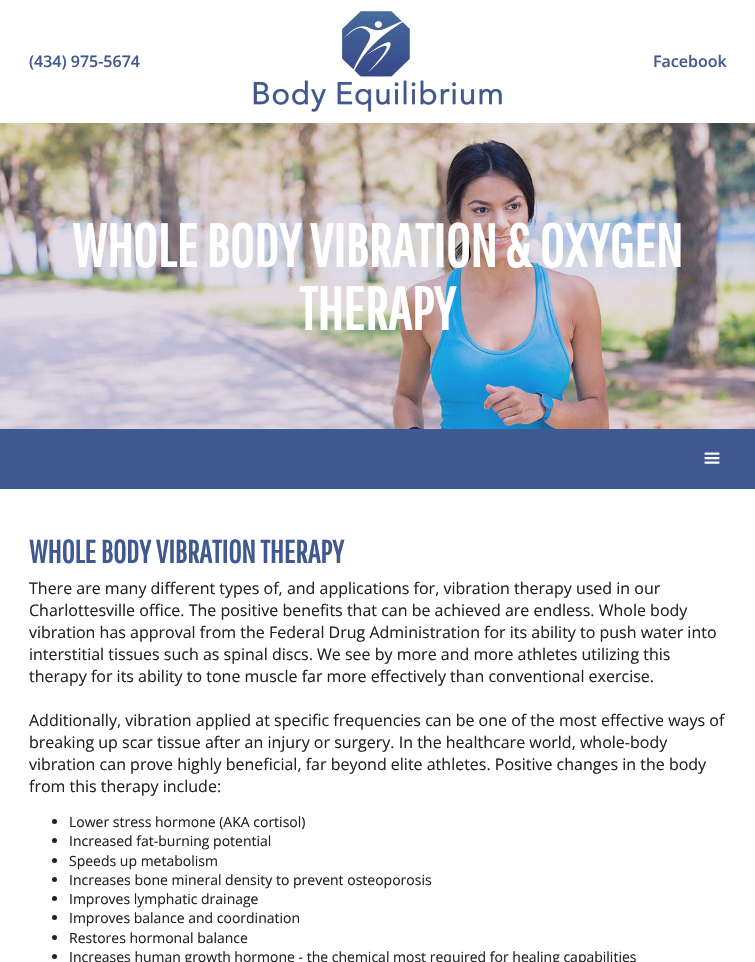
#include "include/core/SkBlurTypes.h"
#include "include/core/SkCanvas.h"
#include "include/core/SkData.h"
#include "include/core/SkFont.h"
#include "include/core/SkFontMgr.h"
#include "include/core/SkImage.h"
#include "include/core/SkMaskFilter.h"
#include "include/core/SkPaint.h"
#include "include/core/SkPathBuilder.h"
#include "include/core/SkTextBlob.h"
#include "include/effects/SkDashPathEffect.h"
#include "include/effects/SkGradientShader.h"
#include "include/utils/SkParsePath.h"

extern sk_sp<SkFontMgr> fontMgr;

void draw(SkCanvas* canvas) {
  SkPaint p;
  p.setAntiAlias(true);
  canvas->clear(SK_ColorWHITE);
  canvas->drawImageRect(SkImages::DeferredFromEncodedData(SkData::MakeFromFileName("images/1.png")), SkRect::MakeLTRB(253, 10, 503, 113), SkSamplingOptions());
  canvas->drawImageRect(SkImages::DeferredFromEncodedData(SkData::MakeFromFileName("images/2.png")), SkRect::MakeLTRB(0, 123, 755, 429), SkSamplingOptions());
  p.setColor(SkColorSetRGB(64, 89, 145));
  canvas->drawRect(SkRect::MakeLTRB(0, 429, 755, 489), p);
  canvas->drawImageRect(SkImages::DeferredFromEncodedData(SkData::MakeFromFileName("images/3.png")), SkRect::MakeLTRB(704, 452, 720, 464), SkSamplingOptions());
  p.setColor(SkColorSetRGB(34, 34, 34));
  canvas->drawCircle(54.5f, 821.5f, 2.5f, p);
  canvas->drawCircle(54.5f, 840.5f, 2.5f, p);
  canvas->drawCircle(54.5f, 860.5f, 2.5f, p);
  canvas->drawCircle(54.5f, 879.5f, 2.5f, p);
  canvas->drawCircle(54.5f, 898.5f, 2.5f, p);
  canvas->drawCircle(54.5f, 917.5f, 2.5f, p);
  canvas->drawCircle(54.5f, 937.5f, 2.5f, p);
  canvas->drawCircle(54.5f, 956.5f, 2.5f, p);
  SkFont font1(fontMgr->matchFamilyStyle("Open Sans", SkFontStyle(600, SkFontStyle::kNormal_Width, SkFontStyle::kUpright_Slant)), 16);
  font1.setSubpixel(true);
  p.setColor(SkColorSetRGB(64, 89, 145));
  canvas->drawString("(434) 975-5674", 29, 67, font1, p);
  canvas->drawString("Facebook", 653, 67, font1, p);
  SkFont font2(fontMgr->matchFamilyStyle("Pathway Gothic One", SkFontStyle::Bold()), 60);
  font2.setSubpixel(true);
  p.setColor(SK_ColorWHITE);
  canvas->drawString("WHOLE BODY VIBRATION & OXYGEN", 72, 267, font2, p);
  canvas->drawString("THERAPY", 299, 330, font2, p);
  SkFont font3(fontMgr->matchFamilyStyle("Pathway Gothic One", SkFontStyle::Bold()), 32);
  font3.setSubpixel(true);
  p.setColor(SkColorSetRGB(64, 89, 145));
  canvas->drawString("WHOLE BODY VIBRATION THERAPY", 29, 563, font3, p);
  SkFont font4(fontMgr->matchFamilyStyle("Open Sans", SkFontStyle::Normal()), 16);
  font4.setSubpixel(true);
  p.setColor(SkColorSetRGB(34, 34, 34));
  canvas->drawString("There are many different types of, and applications for, vibration therapy used in our", 29, 594, font4, p);
  canvas->drawString("Charlottesville office. The positive benefits that can be achieved are endless. Whole body", 29, 616, font4, p);
  canvas->drawString("vibration has approval from the Federal Drug Administration for its ability to push water into", 29, 638, font4, p);
  canvas->drawString("interstitial tissues such as spinal discs. We see by more and more athletes utilizing this", 29, 660, font4, p);
  canvas->drawString("therapy for its ability to tone muscle far more effectively than conventional exercise.", 29, 682, font4, p);
  canvas->drawString("Additionally, vibration applied at specific frequencies can be one of the most effective ways of", 29, 726, font4, p);
  canvas->drawString("breaking up scar tissue after an injury or surgery. In the healthcare world, whole-body", 29, 748, font4, p);
  canvas->drawString("vibration can prove highly beneficial, far beyond elite athletes. Positive changes in the body", 29, 770, font4, p);
  canvas->drawString("from this therapy include:", 29, 792, font4, p);
  SkFont font5(fontMgr->matchFamilyStyle("Open Sans", SkFontStyle::Normal()), 14);
  font5.setSubpixel(true);
  canvas->drawString("Lower stress hormone (AKA cortisol)", 69, 827, font5, p);
  canvas->drawString("Increased fat-burning potential", 69, 846, font5, p);
  canvas->drawString("Speeds up metabolism", 69, 866, font5, p);
  canvas->drawString("Increases bone mineral density to prevent osteoporosis", 69, 885, font5, p);
  canvas->drawString("Improves lymphatic drainage", 69, 904, font5, p);
  canvas->drawString("Improves balance and coordination", 69, 923, font5, p);
  canvas->drawString("Restores hormonal balance", 69, 943, font5, p);
  canvas->drawString("Increases human growth hormone - the chemical most required for healing capabilities", 69, 962, font5, p);
}
